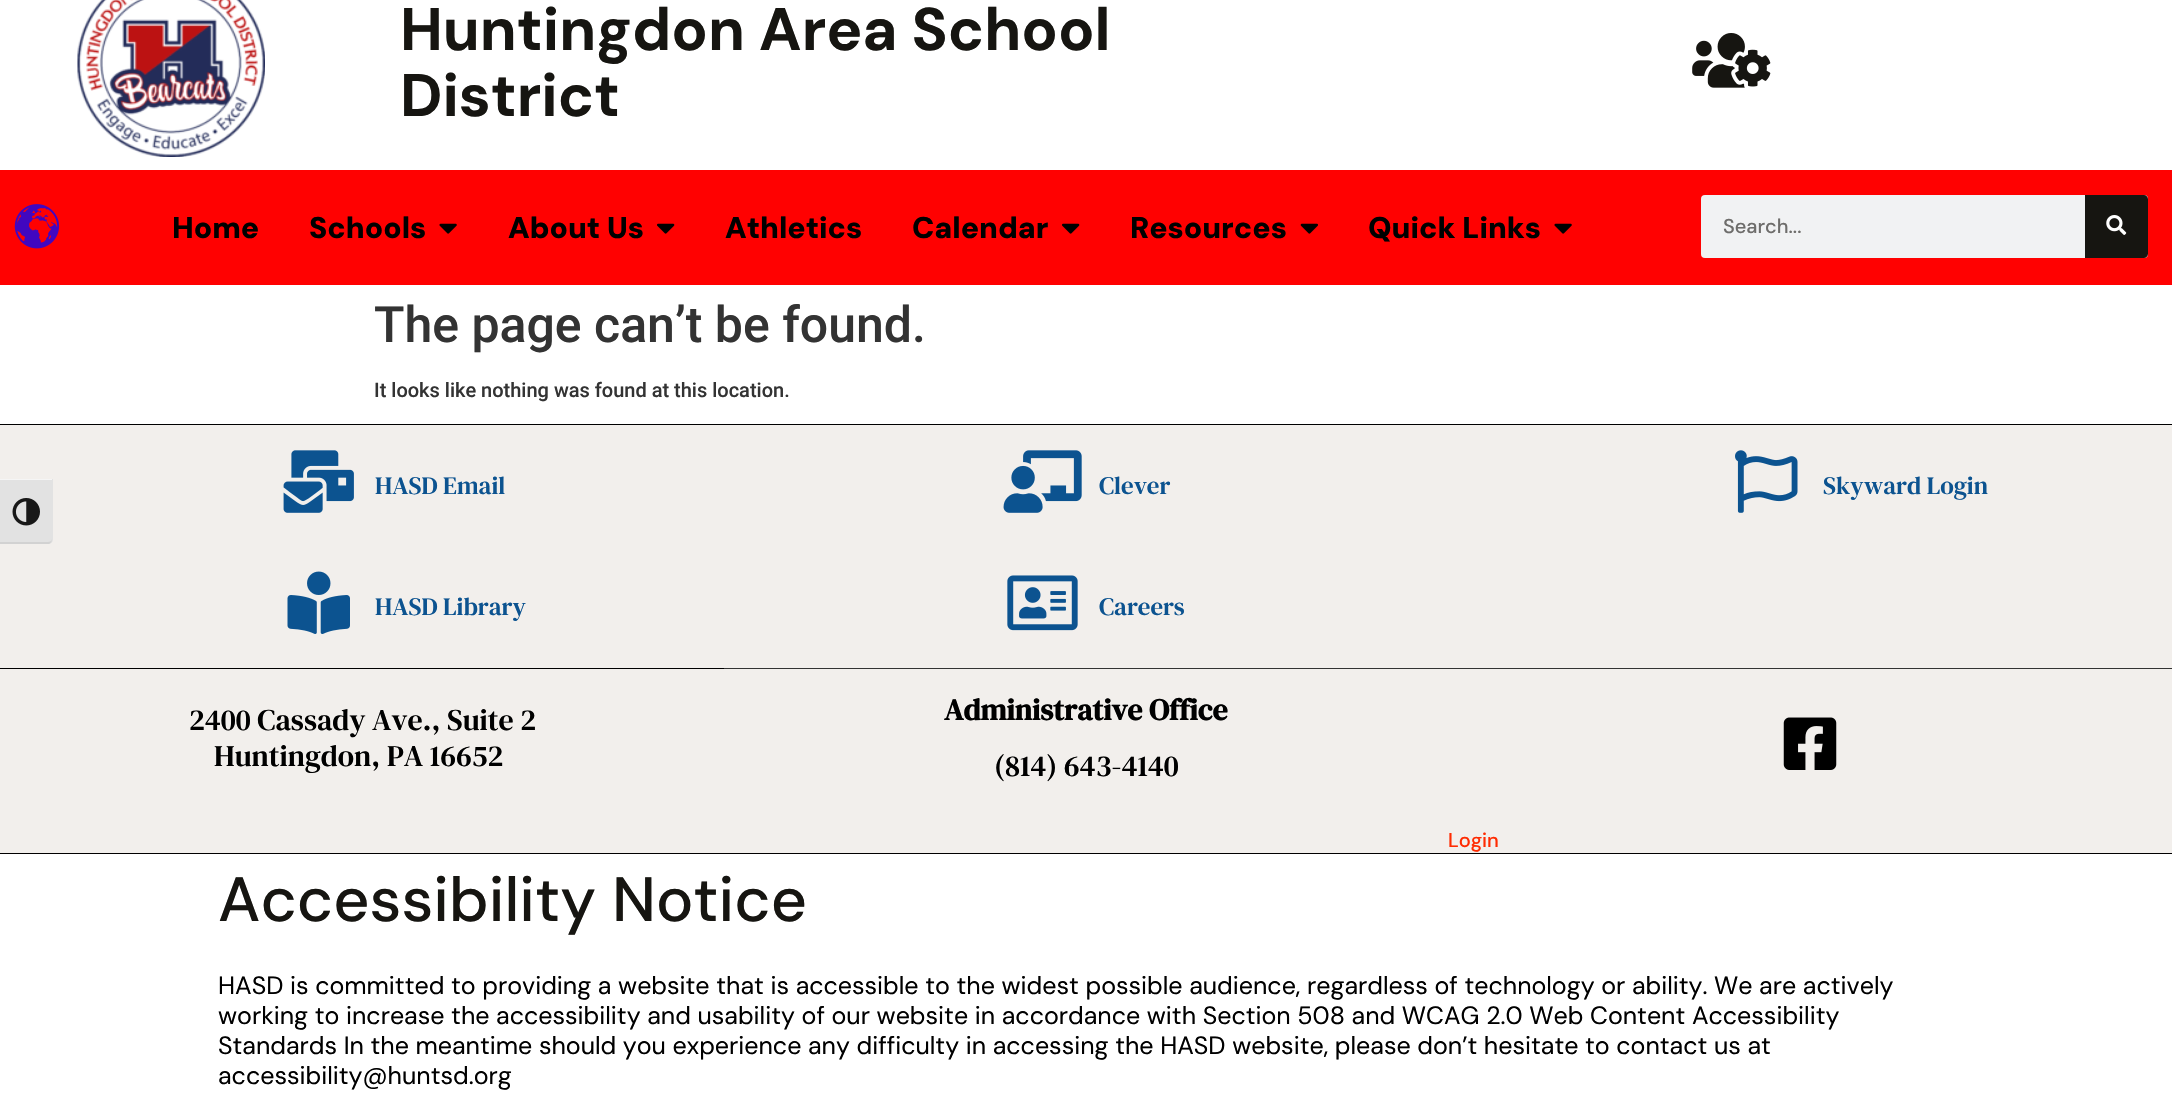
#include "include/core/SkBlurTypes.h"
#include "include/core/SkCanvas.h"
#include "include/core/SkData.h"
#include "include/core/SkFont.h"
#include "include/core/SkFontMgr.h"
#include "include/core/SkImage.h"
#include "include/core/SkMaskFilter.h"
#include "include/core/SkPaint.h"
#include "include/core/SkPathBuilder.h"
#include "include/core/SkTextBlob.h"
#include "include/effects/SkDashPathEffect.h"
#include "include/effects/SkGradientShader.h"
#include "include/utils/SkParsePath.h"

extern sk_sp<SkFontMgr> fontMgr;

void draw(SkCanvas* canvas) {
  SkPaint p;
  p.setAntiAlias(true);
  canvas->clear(SK_ColorWHITE);
  canvas->drawImageRect(SkImages::DeferredFromEncodedData(SkData::MakeFromFileName("images/1.png")), SkRect::MakeLTRB(77, 0, 265, 157), SkSamplingOptions());
  canvas->drawImageRect(SkImages::DeferredFromEncodedData(SkData::MakeFromFileName("images/2.png")), SkRect::MakeLTRB(1692, 33, 1771, 88), SkSamplingOptions());
  p.setColor(SkColorSetRGB(255, 1, 1));
  canvas->drawRect(SkRect::MakeLTRB(0, 170, 2172, 285), p);
  canvas->drawImageRect(SkImages::DeferredFromEncodedData(SkData::MakeFromFileName("images/3.png")), SkRect::MakeLTRB(14, 204, 60, 249), SkSamplingOptions());
  canvas->drawImageRect(SkImages::DeferredFromEncodedData(SkData::MakeFromFileName("images/4.png")), SkRect::MakeLTRB(439, 223, 457, 234), SkSamplingOptions());
  canvas->drawImageRect(SkImages::DeferredFromEncodedData(SkData::MakeFromFileName("images/5.png")), SkRect::MakeLTRB(657, 223, 675, 234), SkSamplingOptions());
  canvas->drawImageRect(SkImages::DeferredFromEncodedData(SkData::MakeFromFileName("images/5.png")), SkRect::MakeLTRB(1062, 223, 1080, 234), SkSamplingOptions());
  canvas->drawImageRect(SkImages::DeferredFromEncodedData(SkData::MakeFromFileName("images/6.png")), SkRect::MakeLTRB(1300, 223, 1318, 234), SkSamplingOptions());
  canvas->drawImageRect(SkImages::DeferredFromEncodedData(SkData::MakeFromFileName("images/4.png")), SkRect::MakeLTRB(1554, 223, 1572, 234), SkSamplingOptions());
  p.setColor(SkColorSetRGB(241, 242, 243));
  canvas->drawRoundRect(SkRect::MakeLTRB(1701, 195, 2148, 258), 4, 4, p);
  p.setColor(SkColorSetRGB(22, 21, 17));
  canvas->drawPath(SkPathBuilder().moveTo(2085, 195).lineTo(2144, 195).cubicTo(2146, 195, 2148, 197, 2148, 199).lineTo(2148, 254).cubicTo(2148, 256, 2146, 258, 2144, 258).lineTo(2085, 258).close().detach(), p);
  canvas->drawImageRect(SkImages::DeferredFromEncodedData(SkData::MakeFromFileName("images/7.png")), SkRect::MakeLTRB(2106, 215, 2127, 235), SkSamplingOptions());
  p.setColor(SkColorSetRGB(242, 239, 236));
  canvas->drawRect(SkRect::MakeLTRB(0, 425, 2172, 853), p);
  p.setColor(SkColorSetRGB(226, 226, 226));
  canvas->drawPath(SkPathBuilder().moveTo(0, 479).lineTo(53, 479).lineTo(53, 539).cubicTo(53, 542, 51, 544, 48, 544).lineTo(0, 544).close().detach(), p);
  p.setColor(SkColorSetRGB(245, 245, 245));
  canvas->drawRect(SkRect::MakeLTRB(0, 479, 52, 480), p);
  p.setColor(SkColorSetRGB(210, 210, 210));
  canvas->drawPath(SkPathBuilder().moveTo(49, 544).cubicTo(51, 543, 52, 541, 52, 539).cubicTo(52, 541, 50, 542, 48, 542).lineTo(0, 542).lineTo(0, 544).close().detach(), p);
  canvas->drawImageRect(SkImages::DeferredFromEncodedData(SkData::MakeFromFileName("images/8.png")), SkRect::MakeLTRB(12, 498, 40, 526), SkSamplingOptions());
  p.setColor(SK_ColorBLACK);
  canvas->drawRect(SkRect::MakeLTRB(0, 424, 2172, 425), p);
  canvas->drawRect(SkRect::MakeLTRB(0, 853, 2172, 854), p);
  canvas->drawImageRect(SkImages::DeferredFromEncodedData(SkData::MakeFromFileName("images/9.png")), SkRect::MakeLTRB(283, 450, 354, 513), SkSamplingOptions());
  canvas->drawImageRect(SkImages::DeferredFromEncodedData(SkData::MakeFromFileName("images/10.png")), SkRect::MakeLTRB(287, 571, 350, 634), SkSamplingOptions());
  canvas->drawRect(SkRect::MakeLTRB(0, 668, 724, 669), p);
  canvas->drawImageRect(SkImages::DeferredFromEncodedData(SkData::MakeFromFileName("images/11.png")), SkRect::MakeLTRB(1003, 450, 1082, 513), SkSamplingOptions());
  canvas->drawImageRect(SkImages::DeferredFromEncodedData(SkData::MakeFromFileName("images/12.png")), SkRect::MakeLTRB(1007, 575, 1078, 631), SkSamplingOptions());
  p.setColor(SkColorSetRGB(51, 51, 51));
  canvas->drawRect(SkRect::MakeLTRB(724, 668, 2172, 669), p);
  canvas->drawImageRect(SkImages::DeferredFromEncodedData(SkData::MakeFromFileName("images/13.png")), SkRect::MakeLTRB(1735, 450, 1798, 513), SkSamplingOptions());
  canvas->drawImageRect(SkImages::DeferredFromEncodedData(SkData::MakeFromFileName("images/14.png")), SkRect::MakeLTRB(1783, 717, 1837, 770), SkSamplingOptions());
  SkFont font1(fontMgr->matchFamilyStyle("DM Sans", SkFontStyle::Bold()), 60);
  font1.setSubpixel(true);
  p.setColor(SkColorSetRGB(22, 21, 17));
  canvas->drawString("Huntingdon Area School", 400, 50, font1, p);
  canvas->drawString("District", 400, 116, font1, p);
  SkFont font2(fontMgr->matchFamilyStyle("DM Sans", SkFontStyle(900, SkFontStyle::kNormal_Width, SkFontStyle::kUpright_Slant)), 30);
  font2.setSubpixel(true);
  p.setColor(SK_ColorBLACK);
  canvas->drawString("Home", 172, 238, font2, p);
  canvas->drawString("Schools", 309, 238, font2, p);
  canvas->drawString("About Us", 508, 238, font2, p);
  canvas->drawString("Athletics", 725, 238, font2, p);
  canvas->drawString("Calendar", 912, 238, font2, p);
  canvas->drawString("Resources", 1130, 238, font2, p);
  canvas->drawString("Quick Links", 1368, 238, font2, p);
  SkFont font3(fontMgr->matchFamilyStyle("DM Sans", SkFontStyle(500, SkFontStyle::kNormal_Width, SkFontStyle::kUpright_Slant)), 20);
  font3.setSubpixel(true);
  p.setColor(SkColorSetRGB(110, 109, 107));
  canvas->drawString("Search...", 1723, 233, font3, p);
  SkFont font4(fontMgr->matchFamilyStyle("Roboto", SkFontStyle(500, SkFontStyle::kNormal_Width, SkFontStyle::kUpright_Slant)), 50);
  font4.setSubpixel(true);
  p.setColor(SkColorSetRGB(51, 51, 51));
  canvas->drawString("The page can’t be found.", 374, 342, font4, p);
  SkFont font5(fontMgr->matchFamilyStyle("Roboto", SkFontStyle(500, SkFontStyle::kNormal_Width, SkFontStyle::kUpright_Slant)), 20);
  font5.setSubpixel(true);
  canvas->drawString("It looks like nothing was found at this location.", 374, 397, font5, p);
  SkFont font6(fontMgr->matchFamilyStyle("DM Serif Text", SkFontStyle::Normal()), 25);
  font6.setSubpixel(true);
  p.setColor(SkColorSetRGB(12, 83, 144));
  canvas->drawString("HASD Email", 375, 494, font6, p);
  canvas->drawString("HASD Library", 375, 615, font6, p);
  SkFont font7(fontMgr->matchFamilyStyle("DM Serif Text", SkFontStyle::Normal()), 30);
  font7.setSubpixel(true);
  p.setColor(SK_ColorBLACK);
  canvas->drawString("2400 Cassady Ave., Suite 2", 189, 730, font7, p);
  canvas->drawString("Huntingdon, PA 16652", 214, 766, font7, p);
  p.setColor(SkColorSetRGB(12, 83, 144));
  canvas->drawString("Clever", 1099, 494, font6, p);
  canvas->drawString("Careers", 1099, 615, font6, p);
  SkFont font8(fontMgr->matchFamilyStyle("DM Serif Text", SkFontStyle::Bold()), 30);
  font8.setSubpixel(true);
  p.setColor(SK_ColorBLACK);
  canvas->drawString("Administrative Office", 944, 720, font8, p);
  canvas->drawString("(814) 643-4140", 994, 776, font7, p);
  p.setColor(SkColorSetRGB(12, 83, 144));
  canvas->drawString("Skyward Login", 1823, 494, font6, p);
  p.setColor(SkColorSetRGB(255, 43, 2));
  canvas->drawString("Login", 1448, 847, font3, p);
  SkFont font9(fontMgr->matchFamilyStyle("DM Sans", SkFontStyle(500, SkFontStyle::kNormal_Width, SkFontStyle::kUpright_Slant)), 62.5f);
  font9.setSubpixel(true);
  p.setColor(SkColorSetRGB(22, 21, 17));
  canvas->drawString("Accessibility Notice", 218, 921, font9, p);
  SkFont font10(fontMgr->matchFamilyStyle("DM Sans", SkFontStyle::Normal()), 25);
  font10.setSubpixel(true);
  p.setColor(SK_ColorBLACK);
  canvas->drawString("HASD is committed to providing a website that is accessible to the widest possible audience, regardless of technology or ability. We are actively", 218, 994, font10, p);
  canvas->drawString("working to increase the accessibility and usability of our website in accordance with Section 508 and WCAG 2.0 Web Content Accessibility", 218, 1024, font10, p);
  canvas->drawString("Standards In the meantime should you experience any difficulty in accessing the HASD website, please don’t hesitate to contact us at", 218, 1054, font10, p);
  canvas->drawString("accessibility@huntsd.org", 218, 1084, font10, p);
}
